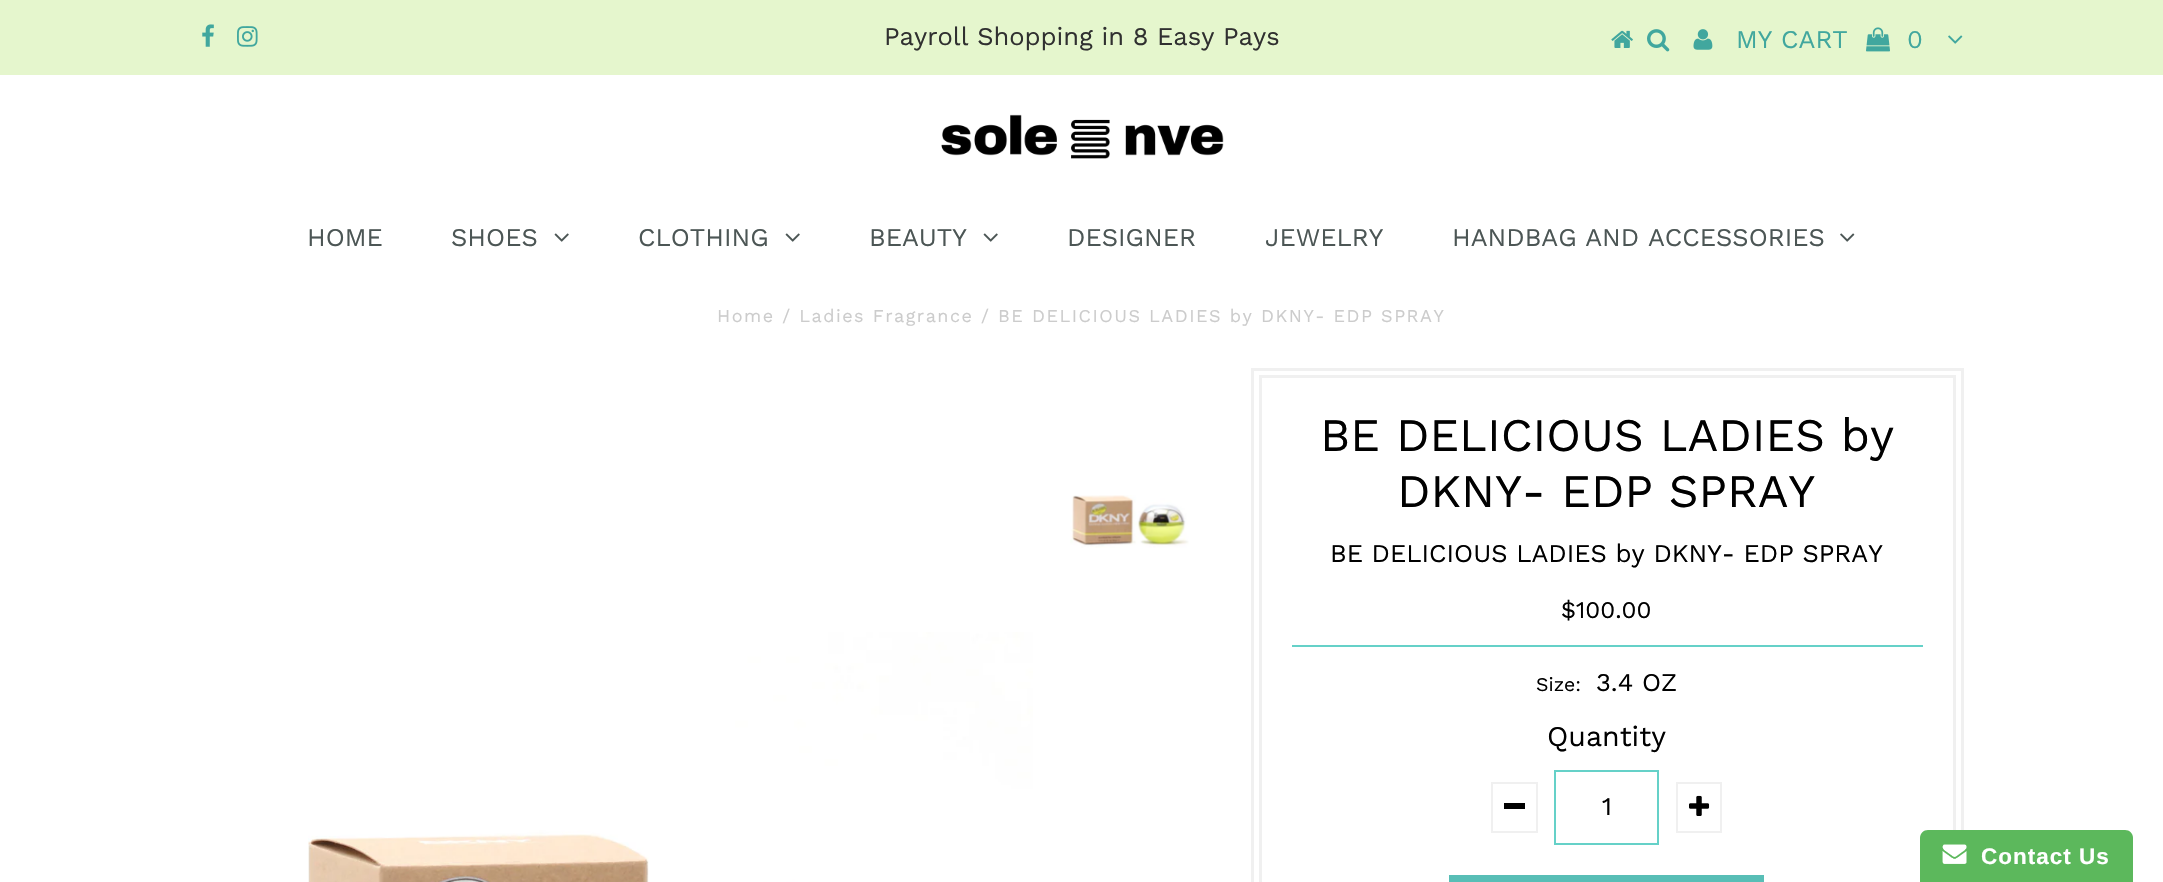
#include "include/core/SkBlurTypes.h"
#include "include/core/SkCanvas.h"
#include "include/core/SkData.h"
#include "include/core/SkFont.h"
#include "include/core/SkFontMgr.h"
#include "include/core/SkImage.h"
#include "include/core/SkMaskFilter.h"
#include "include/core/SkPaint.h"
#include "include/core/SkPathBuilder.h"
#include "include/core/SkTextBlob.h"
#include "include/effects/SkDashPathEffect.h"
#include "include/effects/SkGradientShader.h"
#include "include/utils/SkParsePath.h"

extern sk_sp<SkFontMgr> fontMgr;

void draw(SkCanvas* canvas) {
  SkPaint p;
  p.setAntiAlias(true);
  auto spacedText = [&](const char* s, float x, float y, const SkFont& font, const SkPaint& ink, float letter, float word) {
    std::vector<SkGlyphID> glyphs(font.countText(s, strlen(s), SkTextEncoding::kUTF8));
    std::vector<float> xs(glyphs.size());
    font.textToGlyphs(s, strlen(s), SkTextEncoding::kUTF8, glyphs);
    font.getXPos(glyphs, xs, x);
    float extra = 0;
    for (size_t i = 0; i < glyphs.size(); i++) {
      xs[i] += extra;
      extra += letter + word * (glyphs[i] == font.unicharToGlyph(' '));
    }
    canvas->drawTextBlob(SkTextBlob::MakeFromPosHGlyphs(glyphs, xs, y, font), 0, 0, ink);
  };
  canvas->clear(SK_ColorWHITE);
  p.setColor(SkColorSetRGB(229, 246, 205));
  canvas->drawRect(SkRect::MakeLTRB(0, 0, 2163, 75), p);
  canvas->drawImageRect(SkImages::DeferredFromEncodedData(SkData::MakeFromFileName("images/1.png")), SkRect::MakeLTRB(202, 24, 214, 47), SkSamplingOptions());
  canvas->drawImageRect(SkImages::DeferredFromEncodedData(SkData::MakeFromFileName("images/2.png")), SkRect::MakeLTRB(237, 26, 258, 47), SkSamplingOptions());
  canvas->drawImageRect(SkImages::DeferredFromEncodedData(SkData::MakeFromFileName("images/3.png")), SkRect::MakeLTRB(1611, 30, 1633, 48), SkSamplingOptions());
  canvas->drawImageRect(SkImages::DeferredFromEncodedData(SkData::MakeFromFileName("images/4.png")), SkRect::MakeLTRB(1647, 29, 1670, 52), SkSamplingOptions());
  canvas->drawImageRect(SkImages::DeferredFromEncodedData(SkData::MakeFromFileName("images/5.png")), SkRect::MakeLTRB(1693, 29, 1713, 50), SkSamplingOptions());
  canvas->drawImageRect(SkImages::DeferredFromEncodedData(SkData::MakeFromFileName("images/6.png")), SkRect::MakeLTRB(1866, 27, 1890, 52), SkSamplingOptions());
  canvas->drawImageRect(SkImages::DeferredFromEncodedData(SkData::MakeFromFileName("images/7.png")), SkRect::MakeLTRB(1948, 35, 1963, 44), SkSamplingOptions());
  canvas->drawImageRect(SkImages::DeferredFromEncodedData(SkData::MakeFromFileName("images/8.png")), SkRect::MakeLTRB(941, 114, 1224, 159), SkSamplingOptions());
  canvas->drawImageRect(SkImages::DeferredFromEncodedData(SkData::MakeFromFileName("images/9.png")), SkRect::MakeLTRB(554, 233, 569, 242), SkSamplingOptions());
  canvas->drawImageRect(SkImages::DeferredFromEncodedData(SkData::MakeFromFileName("images/9.png")), SkRect::MakeLTRB(785, 233, 800, 242), SkSamplingOptions());
  canvas->drawImageRect(SkImages::DeferredFromEncodedData(SkData::MakeFromFileName("images/9.png")), SkRect::MakeLTRB(983, 233, 998, 242), SkSamplingOptions());
  canvas->drawImageRect(SkImages::DeferredFromEncodedData(SkData::MakeFromFileName("images/10.png")), SkRect::MakeLTRB(1840, 233, 1855, 242), SkSamplingOptions());
  canvas->drawImageRect(SkImages::DeferredFromEncodedData(SkData::MakeFromFileName("images/11.png")), SkRect::MakeLTRB(1070, 495, 1189, 548), SkSamplingOptions());
  canvas->drawImageRect(SkImages::DeferredFromEncodedData(SkData::MakeFromFileName("images/12.png")), SkRect::MakeLTRB(308, 632, 1033, 882), SkSamplingOptions());
  p.setStyle(SkPaint::kStroke_Style);
  p.setStrokeWidth(3);
  p.setColor(SkColorSetRGB(240, 240, 240));
  canvas->drawRect(SkRect::MakeLTRB(1252.5f, 369.5f, 1962.5f, 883.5f), p);
  canvas->drawRect(SkRect::MakeLTRB(1260.5f, 376.5f, 1954.5f, 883.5f), p);
  p.setStyle(SkPaint::kFill_Style);
  p.setColor(SkColorSetRGB(101, 209, 200));
  canvas->drawRect(SkRect::MakeLTRB(1292, 645, 1923, 647), p);
  p.setStyle(SkPaint::kStroke_Style);
  p.setStrokeWidth(2);
  p.setColor(SkColorSetRGB(240, 240, 240));
  canvas->drawRect(SkRect::MakeLTRB(1492, 783, 1537, 832), p);
  p.setStyle(SkPaint::kFill_Style);
  p.setColor(SK_ColorBLACK);
  canvas->drawRect(SkRect::MakeLTRB(1504, 803, 1525, 809), p);
  p.setStyle(SkPaint::kStroke_Style);
  p.setColor(SkColorSetRGB(101, 209, 200));
  canvas->drawRect(SkRect::MakeLTRB(1555, 771, 1658, 844), p);
  p.setColor(SkColorSetRGB(240, 240, 240));
  canvas->drawRect(SkRect::MakeLTRB(1677, 783, 1721, 832), p);
  canvas->drawImageRect(SkImages::DeferredFromEncodedData(SkData::MakeFromFileName("images/13.png")), SkRect::MakeLTRB(1689, 795, 1710, 816), SkSamplingOptions());
  p.setStyle(SkPaint::kFill_Style);
  p.setColor(SkColorSetRGB(88, 190, 182));
  canvas->drawRect(SkRect::MakeLTRB(1449, 875, 1764, 882), p);
  p.setColor(SkColorSetRGB(92, 184, 92));
  canvas->drawPath(SkPathBuilder().moveTo(1928, 830).lineTo(2125, 830).cubicTo(2129.5f, 830, 2133, 833.5f, 2133, 838).lineTo(2133, 882).lineTo(1920, 882).lineTo(1920, 838).cubicTo(1920, 833.5f, 1923.5f, 830, 1928, 830).close().detach(), p);
  canvas->drawImageRect(SkImages::DeferredFromEncodedData(SkData::MakeFromFileName("images/14.png")), SkRect::MakeLTRB(1942, 844, 1967, 864), SkSamplingOptions());
  SkFont font1(fontMgr->matchFamilyStyle("Work Sans", SkFontStyle::Normal()), 25.5f);
  font1.setSubpixel(true);
  p.setColor(SkColorSetRGB(48, 48, 48));
  canvas->drawString("Payroll Shopping in 8 Easy Pays", 884, 45, font1, p);
  p.setColor(SkColorSetRGB(65, 167, 158));
  canvas->drawString("MY CART", 1736, 48, font1, p);
  canvas->drawString("0", 1907, 48, font1, p);
  p.setColor(SkColorSetRGB(76, 86, 85));
  canvas->drawString("HOME", 307, 246, font1, p);
  canvas->drawString("SHOES", 451, 246, font1, p);
  canvas->drawString("CLOTHING", 638, 246, font1, p);
  canvas->drawString("BEAUTY", 869, 246, font1, p);
  canvas->drawString("DESIGNER", 1067, 246, font1, p);
  canvas->drawString("JEWELRY", 1265, 246, font1, p);
  canvas->drawString("HANDBAG AND ACCESSORIES", 1452, 246, font1, p);
  SkFont font2(fontMgr->matchFamilyStyle("Work Sans", SkFontStyle::Normal()), 18);
  font2.setSubpixel(true);
  p.setColor(SkColorSetRGB(204, 204, 204));
  spacedText("Home / Ladies Fragrance / BE DELICIOUS LADIES by DKNY- EDP SPRAY", 717, 322, font2, p, 1.5f, 0);
  SkFont font3(fontMgr->matchFamilyStyle("Work Sans", SkFontStyle::Normal()), 46.5f);
  font3.setSubpixel(true);
  p.setColor(SK_ColorBLACK);
  canvas->drawString("BE DELICIOUS LADIES by", 1320, 451, font3, p);
  canvas->drawString("DKNY- EDP SPRAY", 1397, 507, font3, p);
  canvas->drawString("BE DELICIOUS LADIES by DKNY- EDP SPRAY", 1330, 562, font1, p);
  SkFont font4(fontMgr->matchFamilyStyle("Work Sans", SkFontStyle::Normal()), 24);
  font4.setSubpixel(true);
  canvas->drawString("$100.00", 1561, 618, font4, p);
  SkFont font5(fontMgr->matchFamilyStyle("Work Sans", SkFontStyle::Normal()), 19.5f);
  font5.setSubpixel(true);
  canvas->drawString("Size:", 1536, 691, font5, p);
  canvas->drawString("3.4 OZ", 1596, 691, font1, p);
  SkFont font6(fontMgr->matchFamilyStyle("Work Sans", SkFontStyle::Normal()), 28.5f);
  font6.setSubpixel(true);
  canvas->drawString("Quantity", 1547, 746, font6, p);
  canvas->drawString("1", 1602, 815, font1, p);
  SkFont font7(fontMgr->matchFamilyStyle("Liberation Sans", SkFontStyle::Bold()), 22.5f);
  font7.setSubpixel(true);
  p.setColor(SK_ColorWHITE);
  spacedText("Contact Us", 1981, 864, font7, p, 1, 0);
}
